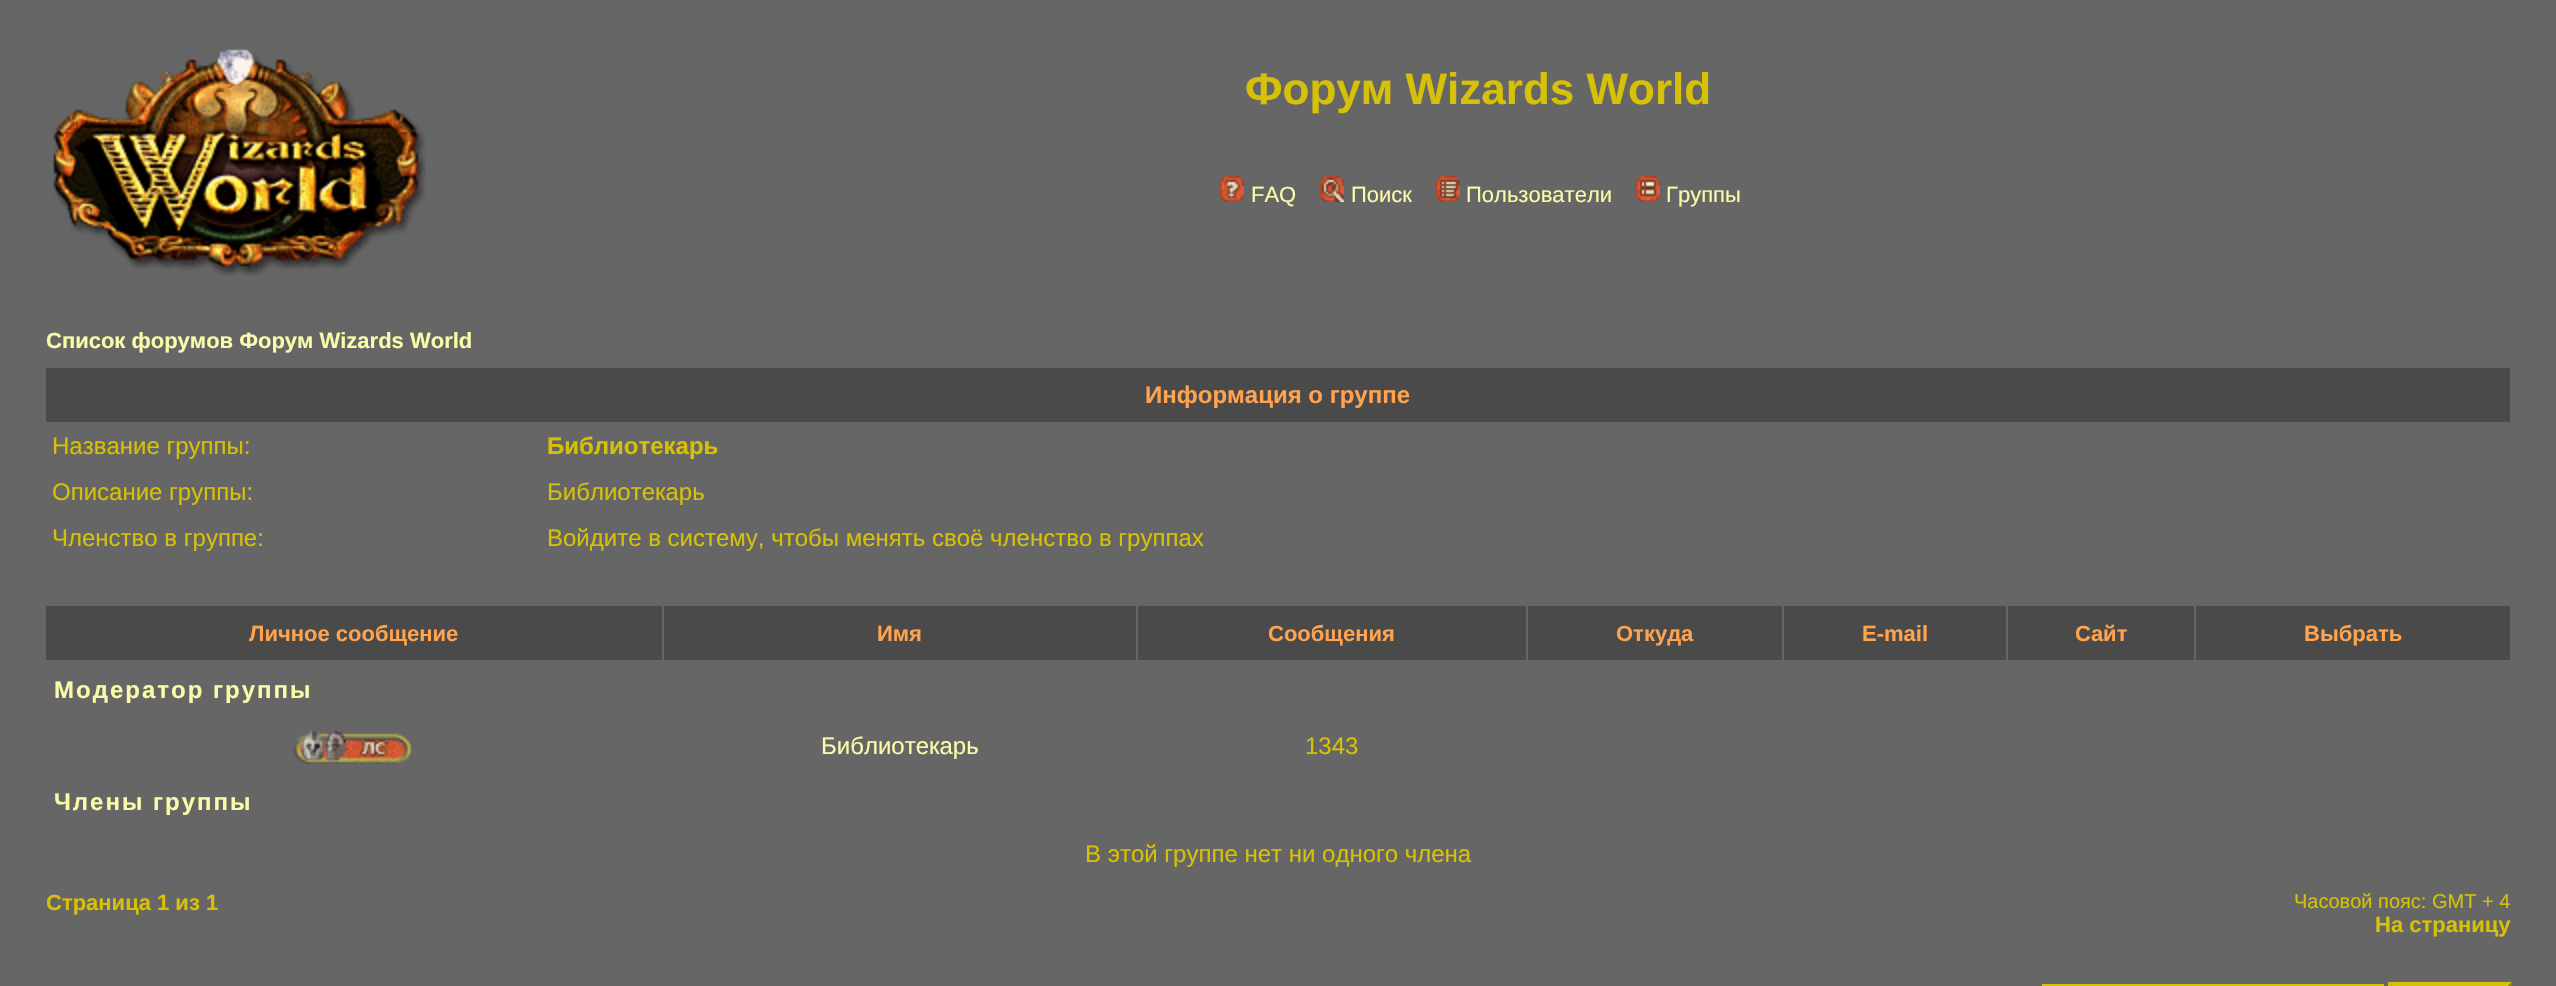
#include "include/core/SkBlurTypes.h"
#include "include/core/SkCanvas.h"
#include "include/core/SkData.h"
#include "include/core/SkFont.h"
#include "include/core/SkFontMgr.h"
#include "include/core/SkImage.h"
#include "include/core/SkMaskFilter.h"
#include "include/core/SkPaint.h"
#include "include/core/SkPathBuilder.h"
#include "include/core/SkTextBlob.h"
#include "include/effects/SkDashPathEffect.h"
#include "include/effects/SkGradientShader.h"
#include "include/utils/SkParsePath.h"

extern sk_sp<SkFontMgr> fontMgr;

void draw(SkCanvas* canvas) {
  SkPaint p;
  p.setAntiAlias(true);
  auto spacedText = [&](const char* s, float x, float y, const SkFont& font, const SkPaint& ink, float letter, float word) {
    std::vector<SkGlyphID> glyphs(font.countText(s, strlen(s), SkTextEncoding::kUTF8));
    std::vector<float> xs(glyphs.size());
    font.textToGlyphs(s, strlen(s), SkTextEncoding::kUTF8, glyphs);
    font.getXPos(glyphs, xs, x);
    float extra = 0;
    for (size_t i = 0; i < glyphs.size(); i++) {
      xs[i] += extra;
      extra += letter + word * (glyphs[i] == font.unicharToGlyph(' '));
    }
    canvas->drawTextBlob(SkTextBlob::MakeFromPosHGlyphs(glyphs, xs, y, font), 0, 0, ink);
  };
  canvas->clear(SkColorSetRGB(102, 102, 102));
  canvas->drawImageRect(SkImages::DeferredFromEncodedData(SkData::MakeFromFileName("images/1.png")), SkRect::MakeLTRB(53, 49, 426, 276), SkSamplingOptions());
  canvas->drawImageRect(SkImages::DeferredFromEncodedData(SkData::MakeFromFileName("images/2.png")), SkRect::MakeLTRB(1220, 176, 1244, 202), SkSamplingOptions());
  canvas->drawImageRect(SkImages::DeferredFromEncodedData(SkData::MakeFromFileName("images/3.png")), SkRect::MakeLTRB(1320, 176, 1344, 202), SkSamplingOptions());
  canvas->drawImageRect(SkImages::DeferredFromEncodedData(SkData::MakeFromFileName("images/4.png")), SkRect::MakeLTRB(1436, 176, 1460, 202), SkSamplingOptions());
  canvas->drawImageRect(SkImages::DeferredFromEncodedData(SkData::MakeFromFileName("images/5.png")), SkRect::MakeLTRB(1636, 176, 1660, 202), SkSamplingOptions());
  p.setColor(SkColorSetRGB(74, 74, 74));
  canvas->drawRect(SkRect::MakeLTRB(46, 368, 2510, 422), p);
  canvas->drawRect(SkRect::MakeLTRB(46, 606, 662, 660), p);
  canvas->drawRect(SkRect::MakeLTRB(664, 606, 1136, 660), p);
  canvas->drawRect(SkRect::MakeLTRB(1138, 606, 1526, 660), p);
  canvas->drawRect(SkRect::MakeLTRB(1528, 606, 1782, 660), p);
  canvas->drawRect(SkRect::MakeLTRB(1784, 606, 2006, 660), p);
  canvas->drawRect(SkRect::MakeLTRB(2008, 606, 2194, 660), p);
  canvas->drawRect(SkRect::MakeLTRB(2196, 606, 2510, 660), p);
  canvas->drawImageRect(SkImages::DeferredFromEncodedData(SkData::MakeFromFileName("images/6.png")), SkRect::MakeLTRB(294, 729, 412, 764), SkSamplingOptions());
  p.setStyle(SkPaint::kStroke_Style);
  p.setStrokeWidth(2);
  p.setColor(SkColorSetRGB(214, 192, 8));
  canvas->drawRect(SkRect::MakeLTRB(2043, 985, 2383, 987), p);
  p.setStyle(SkPaint::kFill_Style);
  canvas->drawPath(SkPathBuilder().moveTo(2388, 982).lineTo(2512, 982).lineTo(2508, 986).lineTo(2392, 986).close().detach(), p);
  p.setColor(SkColorSetRGB(143, 128, 5));
  canvas->drawPath(SkPathBuilder().moveTo(2512, 982).lineTo(2512, 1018).lineTo(2508, 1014).lineTo(2508, 986).close().detach(), p);
  p.setColor(SkColorSetRGB(214, 192, 8));
  canvas->drawPath(SkPathBuilder().moveTo(2388, 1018).lineTo(2388, 982).lineTo(2392, 986).lineTo(2392, 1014).close().detach(), p);
  SkFont font1(fontMgr->matchFamilyStyle("Liberation Sans", SkFontStyle::Bold()), 44);
  font1.setSubpixel(true);
  canvas->drawString("Форум Wizards World", 1245, 104, font1, p);
  SkFont font2(fontMgr->matchFamilyStyle("Liberation Sans", SkFontStyle::Normal()), 22);
  font2.setSubpixel(true);
  p.setColor(SkColorSetRGB(249, 251, 168));
  canvas->drawString("FAQ", 1251, 202, font2, p);
  canvas->drawString("Поиск", 1351, 202, font2, p);
  canvas->drawString("Пользователи", 1466, 202, font2, p);
  canvas->drawString("Группы", 1666, 202, font2, p);
  SkFont font3(fontMgr->matchFamilyStyle("Liberation Sans", SkFontStyle::Bold()), 22);
  font3.setSubpixel(true);
  canvas->drawString("Список форумов Форум Wizards World", 46, 348, font3, p);
  SkFont font4(fontMgr->matchFamilyStyle("Liberation Sans", SkFontStyle::Bold()), 24);
  font4.setSubpixel(true);
  p.setColor(SkColorSetRGB(255, 163, 79));
  canvas->drawString("Информация о группе", 1145, 403, font4, p);
  SkFont font5(fontMgr->matchFamilyStyle("Liberation Sans", SkFontStyle::Normal()), 24);
  font5.setSubpixel(true);
  p.setColor(SkColorSetRGB(214, 192, 8));
  canvas->drawString("Название группы:", 52, 454, font5, p);
  canvas->drawString("Библиотекарь", 547, 454, font4, p);
  canvas->drawString("Описание группы:", 52, 500, font5, p);
  canvas->drawString("Библиотекарь", 547, 500, font5, p);
  canvas->drawString("Членство в группе:", 52, 546, font5, p);
  canvas->drawString("Войдите в систему, чтобы менять своё членство в группах", 547, 546, font5, p);
  p.setColor(SkColorSetRGB(255, 163, 79));
  canvas->drawString("Личное сообщение", 249, 641, font3, p);
  canvas->drawString("Имя", 877, 641, font3, p);
  canvas->drawString("Сообщения", 1268, 641, font3, p);
  canvas->drawString("Откуда", 1616, 641, font3, p);
  canvas->drawString("E-mail", 1862, 641, font3, p);
  canvas->drawString("Сайт", 2075, 641, font3, p);
  canvas->drawString("Выбрать", 2304, 641, font3, p);
  p.setColor(SkColorSetRGB(249, 251, 168));
  spacedText("Модератор группы", 54, 698, font4, p, 2, 0);
  canvas->drawString("Библиотекарь", 821, 754, font5, p);
  p.setColor(SkColorSetRGB(214, 192, 8));
  canvas->drawString("1343", 1305, 754, font5, p);
  p.setColor(SkColorSetRGB(249, 251, 168));
  spacedText("Члены группы", 54, 810, font4, p, 2, 0);
  p.setColor(SkColorSetRGB(214, 192, 8));
  canvas->drawString("В этой группе нет ни одного члена", 1085, 862, font5, p);
  canvas->drawString("Страница 1 из 1", 46, 910, font3, p);
  SkFont font6(fontMgr->matchFamilyStyle("Liberation Sans", SkFontStyle::Normal()), 20);
  font6.setSubpixel(true);
  canvas->drawString("Часовой пояс: GMT + 4", 2294, 908, font6, p);
  canvas->drawString("На страницу", 2375, 932, font3, p);
}
